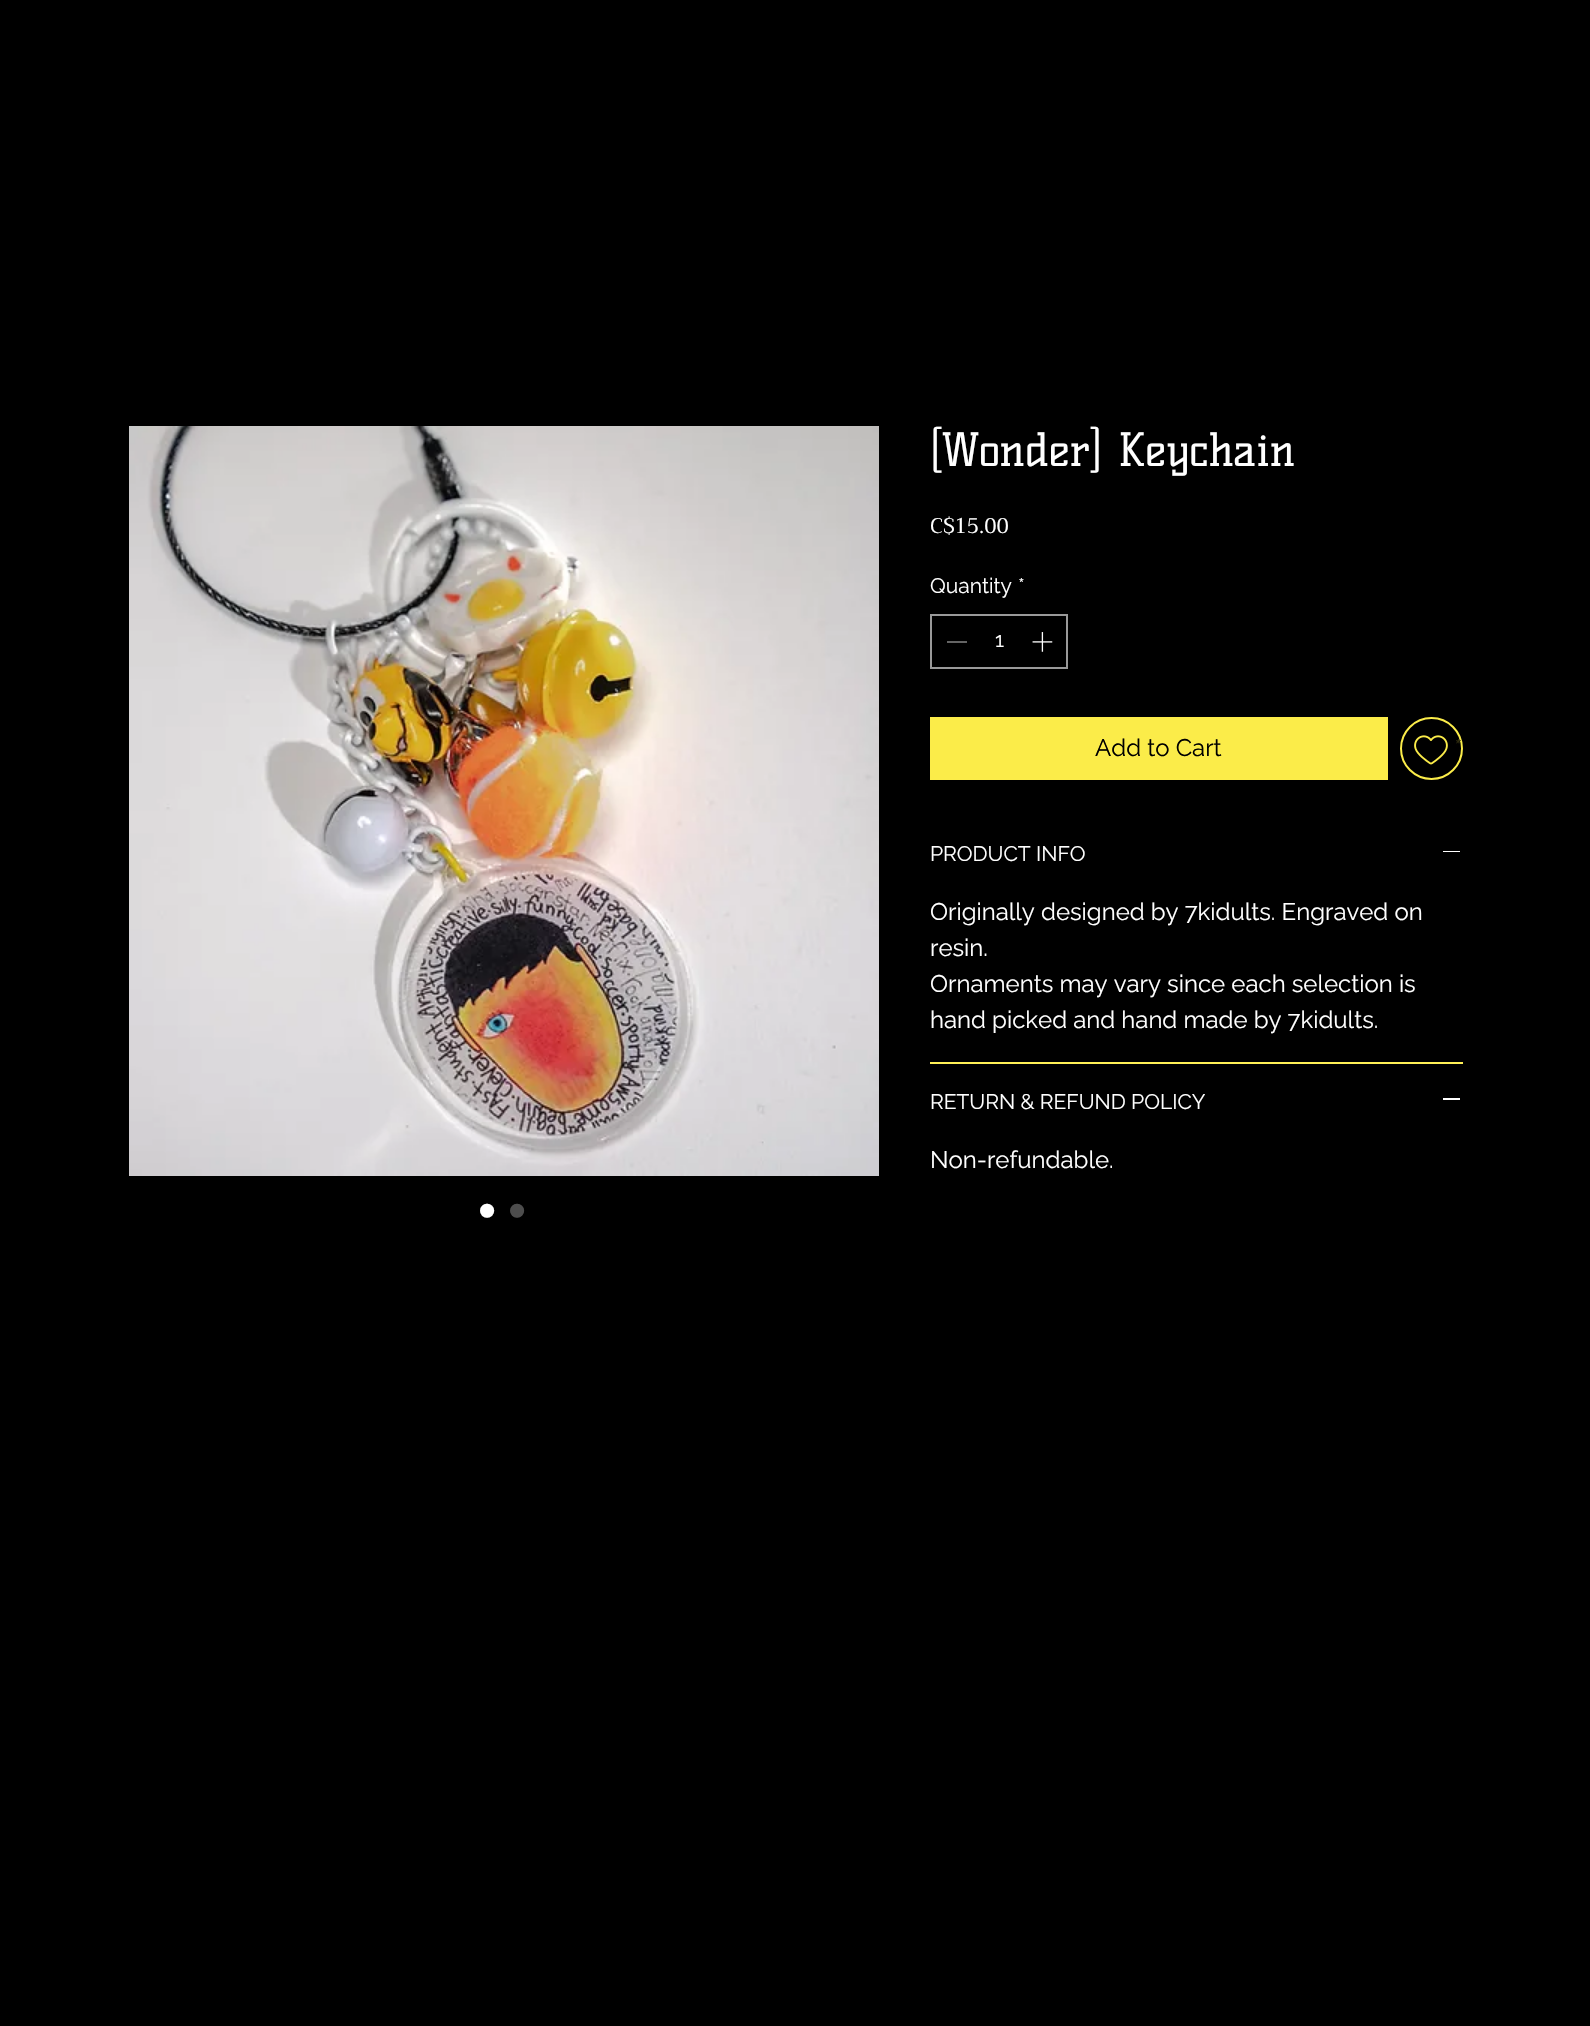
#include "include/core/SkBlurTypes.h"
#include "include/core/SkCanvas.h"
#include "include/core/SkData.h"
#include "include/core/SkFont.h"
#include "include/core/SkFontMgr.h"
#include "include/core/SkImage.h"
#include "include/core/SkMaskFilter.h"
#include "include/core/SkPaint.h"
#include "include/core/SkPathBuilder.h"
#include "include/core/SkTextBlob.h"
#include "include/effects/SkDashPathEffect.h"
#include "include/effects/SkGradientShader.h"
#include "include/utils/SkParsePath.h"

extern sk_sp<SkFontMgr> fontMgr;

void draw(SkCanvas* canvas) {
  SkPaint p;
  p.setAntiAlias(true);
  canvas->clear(SK_ColorBLACK);
  p.setStyle(SkPaint::kStroke_Style);
  p.setStrokeWidth(2);
  p.setColor(SkColorSetRGB(153, 153, 153));
  canvas->drawRect(SkRect::MakeLTRB(931, 615, 1067, 668), p);
  p.setStyle(SkPaint::kFill_Style);
  p.setColor(SkColorSetRGB(100, 100, 100));
  canvas->drawRect(SkRect::MakeLTRB(947, 641, 967, 643), p);
  canvas->drawImageRect(SkImages::DeferredFromEncodedData(SkData::MakeFromFileName("images/1.png")), SkRect::MakeLTRB(1032, 632, 1053, 652), SkSamplingOptions());
  p.setColor(SkColorSetRGB(251, 236, 73));
  canvas->drawRect(SkRect::MakeLTRB(930, 717, 1388, 780), p);
  p.setStyle(SkPaint::kStroke_Style);
  canvas->drawCircle(1431.5f, 748.5f, 30.5f, p);
  canvas->drawImageRect(SkImages::DeferredFromEncodedData(SkData::MakeFromFileName("images/2.png")), SkRect::MakeLTRB(1414, 735, 1448, 765), SkSamplingOptions());
  p.setStyle(SkPaint::kFill_Style);
  p.setColor(SkColorSetRGB(255, 240, 86));
  canvas->drawRect(SkRect::MakeLTRB(930, 1062, 1463, 1064), p);
  p.setColor(SK_ColorWHITE);
  canvas->drawRect(SkRect::MakeLTRB(1443, 851, 1460, 852), p);
  canvas->drawRect(SkRect::MakeLTRB(1443, 1098, 1460, 1100), p);
  canvas->drawImageRect(SkImages::DeferredFromEncodedData(SkData::MakeFromFileName("images/3.png")), SkRect::MakeLTRB(129, 426, 879, 1176), SkSamplingOptions());
  SkFont font1(fontMgr->matchFamilyStyle("Kelly Slab", SkFontStyle::Normal()), 45);
  font1.setSubpixel(true);
  canvas->drawString("[Wonder] Keychain", 930, 466, font1, p);
  SkFont font2(fontMgr->matchFamilyStyle("Trirong", SkFontStyle::Normal()), 21);
  font2.setSubpixel(true);
  canvas->drawString("C$15.00", 930, 533, font2, p);
  SkFont font3(fontMgr->matchFamilyStyle("Raleway", SkFontStyle::Normal()), 21);
  font3.setSubpixel(true);
  canvas->drawString("Quantity", 930, 593, font3, p);
  canvas->drawString("*", 1018, 593, font3, p);
  canvas->drawString("1", 995, 647, font3, p);
  SkFont font4(fontMgr->matchFamilyStyle("Raleway", SkFontStyle::Normal()), 24);
  font4.setSubpixel(true);
  p.setColor(SK_ColorBLACK);
  canvas->drawString("Add to Cart", 1095, 756, font4, p);
  SkFont font5(fontMgr->matchFamilyStyle("Raleway", SkFontStyle::Italic()), 24);
  font5.setSubpixel(true);
  p.setColor(SkColorSetRGB(48, 45, 14));
  canvas->drawString("*", 1453, 756, font5, p);
  p.setColor(SK_ColorWHITE);
  canvas->drawString("PRODUCT INFO", 930, 861, font3, p);
  canvas->drawString("Originally designed by 7kidults. Engraved on", 930, 920, font4, p);
  canvas->drawString("resin.", 930, 956, font4, p);
  canvas->drawString("Ornaments may vary since each selection is", 930, 992, font4, p);
  canvas->drawString("hand picked and hand made by 7kidults.", 930, 1028, font4, p);
  canvas->drawString("RETURN & REFUND POLICY", 930, 1109, font3, p);
  canvas->drawString("Non-refundable.", 930, 1168, font4, p);
  SkFont font6(fontMgr->matchFamilyStyle("Liberation Sans", SkFontStyle::Normal()), 52);
  font6.setSubpixel(true);
  canvas->drawString("•", 478, 1228, font6, p);
  p.setColor(SkColorSetRGB(77, 77, 77));
  canvas->drawString("•", 508, 1228, font6, p);
}
